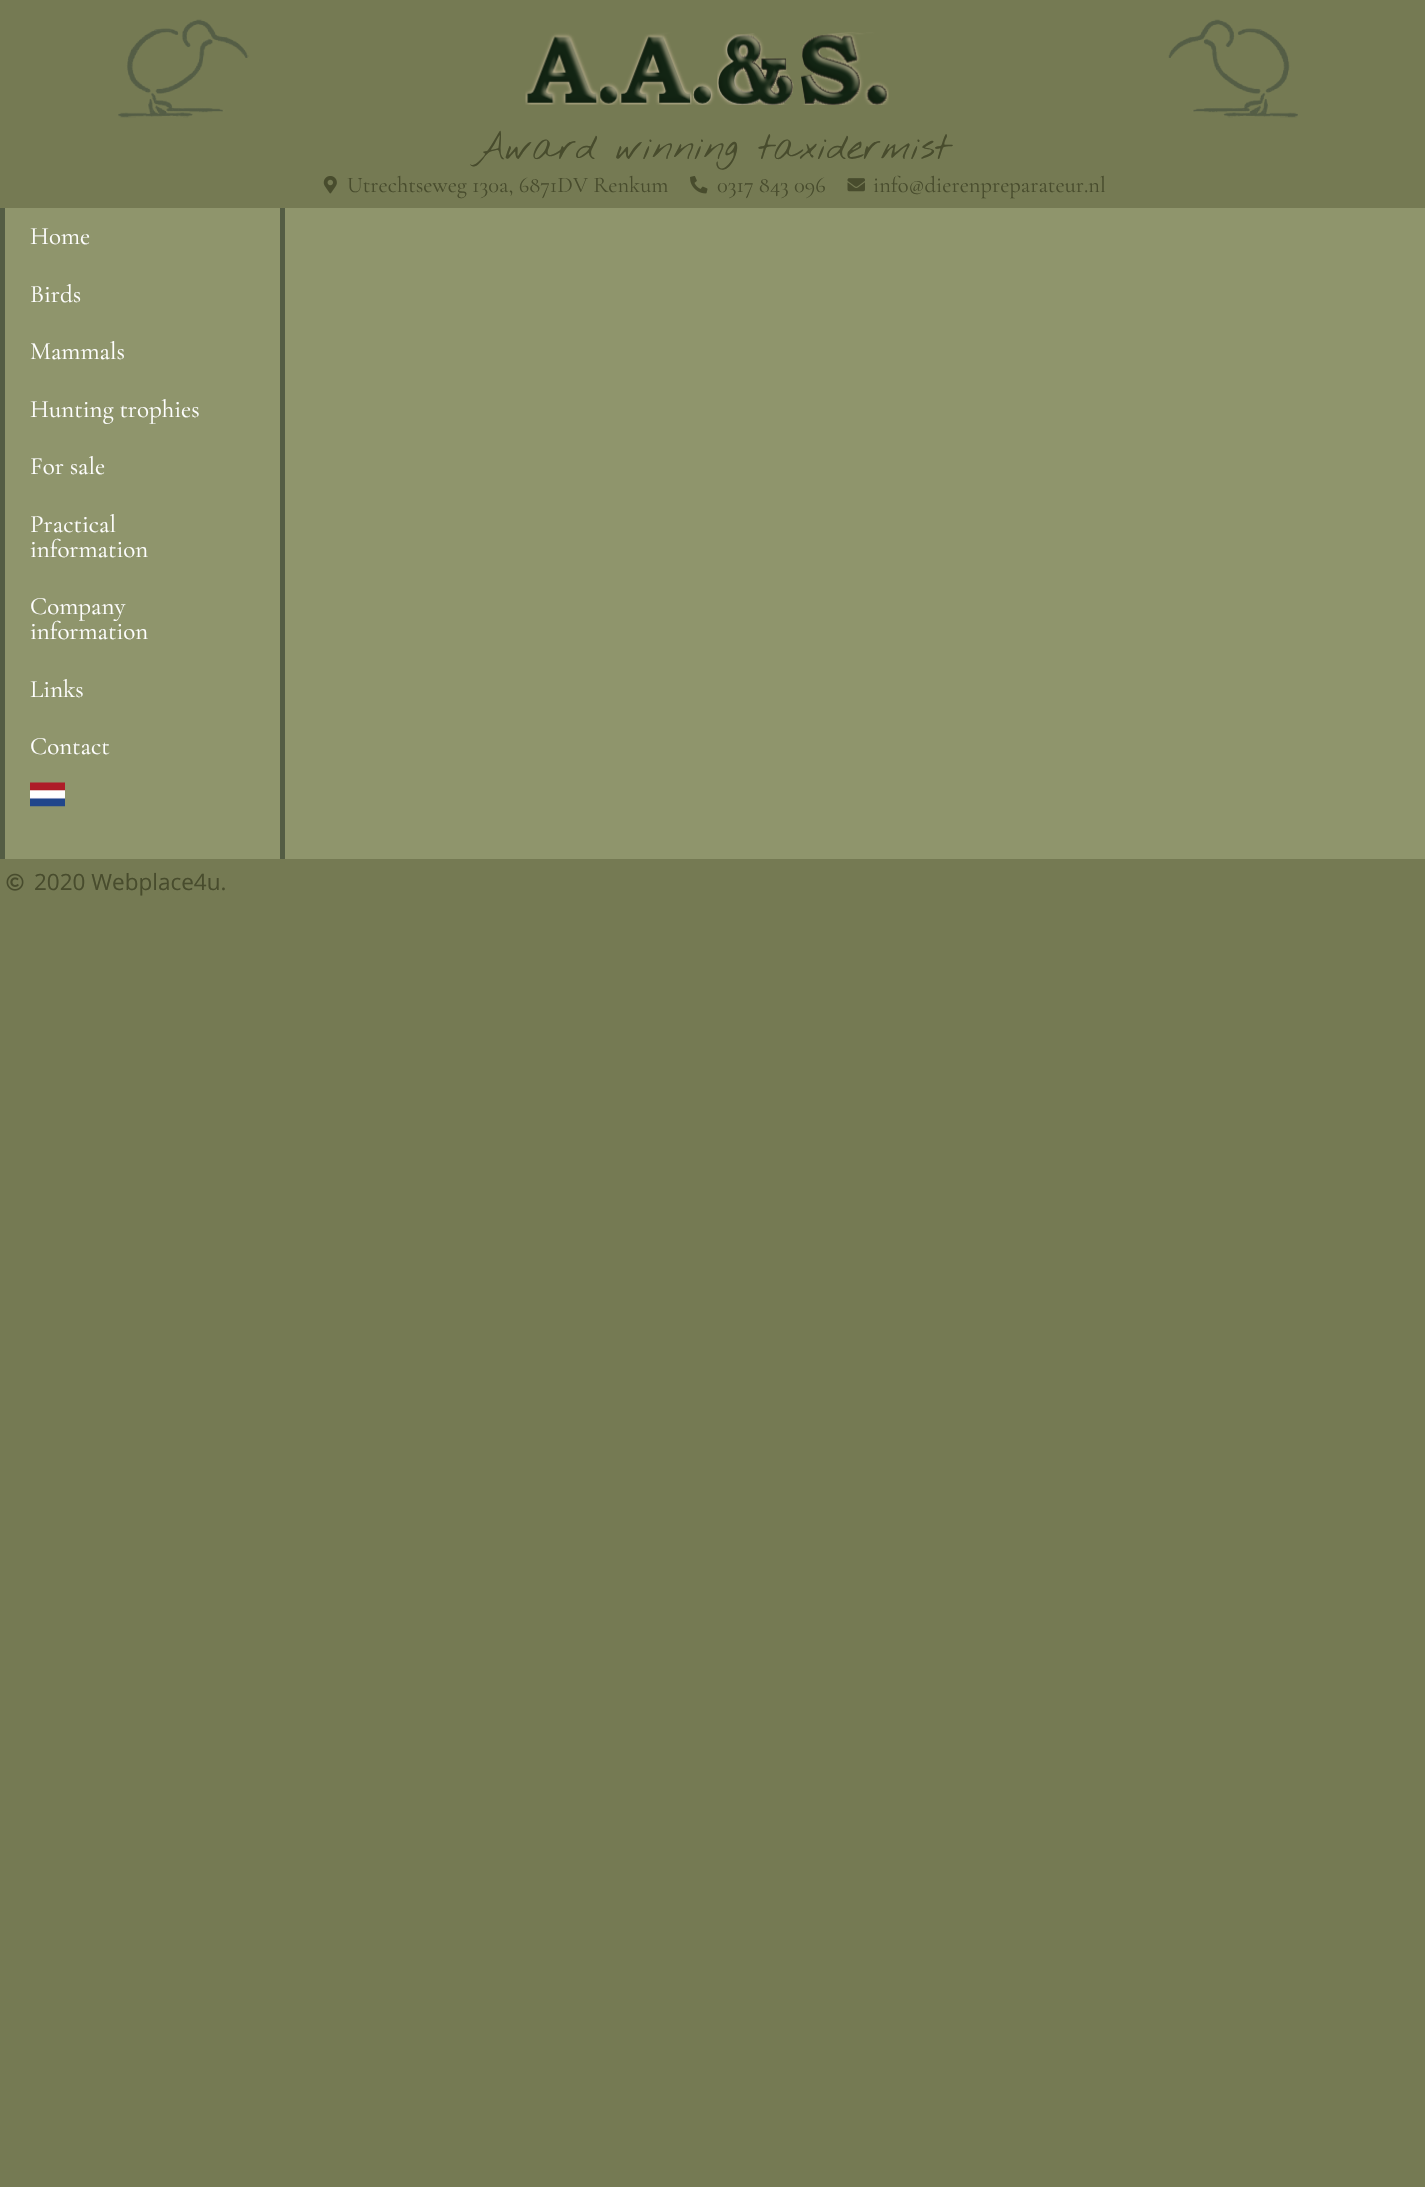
#include "include/core/SkBlurTypes.h"
#include "include/core/SkCanvas.h"
#include "include/core/SkData.h"
#include "include/core/SkFont.h"
#include "include/core/SkFontMgr.h"
#include "include/core/SkImage.h"
#include "include/core/SkMaskFilter.h"
#include "include/core/SkPaint.h"
#include "include/core/SkPathBuilder.h"
#include "include/core/SkTextBlob.h"
#include "include/effects/SkDashPathEffect.h"
#include "include/effects/SkGradientShader.h"
#include "include/utils/SkParsePath.h"

extern sk_sp<SkFontMgr> fontMgr;

void draw(SkCanvas* canvas) {
  SkPaint p;
  p.setAntiAlias(true);
  canvas->clear(SkColorSetRGB(117, 122, 83));
  canvas->drawImageRect(SkImages::DeferredFromEncodedData(SkData::MakeFromFileName("images/1.png")), SkRect::MakeLTRB(118, 19, 249, 118), SkSamplingOptions());
  canvas->drawImageRect(SkImages::DeferredFromEncodedData(SkData::MakeFromFileName("images/2.png")), SkRect::MakeLTRB(525, 32, 889, 105), SkSamplingOptions());
  canvas->drawImageRect(SkImages::DeferredFromEncodedData(SkData::MakeFromFileName("images/3.png")), SkRect::MakeLTRB(1168, 19, 1298, 118), SkSamplingOptions());
  canvas->drawImageRect(SkImages::DeferredFromEncodedData(SkData::MakeFromFileName("images/4.png")), SkRect::MakeLTRB(323, 176, 337, 194), SkSamplingOptions());
  canvas->drawImageRect(SkImages::DeferredFromEncodedData(SkData::MakeFromFileName("images/5.png")), SkRect::MakeLTRB(690, 176, 708, 194), SkSamplingOptions());
  canvas->drawImageRect(SkImages::DeferredFromEncodedData(SkData::MakeFromFileName("images/6.png")), SkRect::MakeLTRB(847, 178, 865, 192), SkSamplingOptions());
  p.setColor(SkColorSetRGB(143, 149, 108));
  canvas->drawRect(SkRect::MakeLTRB(5, 208, 1425, 859), p);
  p.setColor(SkColorSetRGB(84, 93, 68));
  canvas->drawRect(SkRect::MakeLTRB(280, 208, 285, 859), p);
  canvas->drawRect(SkRect::MakeLTRB(0, 208, 5, 859), p);
  canvas->drawImageRect(SkImages::DeferredFromEncodedData(SkData::MakeFromFileName("images/7.png")), SkRect::MakeLTRB(30, 782, 65, 807), SkSamplingOptions());
  canvas->drawImageRect(SkImages::DeferredFromEncodedData(SkData::MakeFromFileName("images/8.png")), SkRect::MakeLTRB(6, 873, 24, 891), SkSamplingOptions());
  SkFont font1(fontMgr->matchFamilyStyle("Nothing You Could Do", SkFontStyle(100, SkFontStyle::kNormal_Width, SkFontStyle::kUpright_Slant)), 37.5f);
  font1.setSubpixel(true);
  p.setColor(SkColorSetRGB(72, 76, 45));
  canvas->drawString("Award winning taxidermist", 474, 159, font1, p);
  SkFont font2(fontMgr->matchFamilyStyle("Cormorant Garamond", SkFontStyle::Normal()), 22.5f);
  font2.setSubpixel(true);
  canvas->drawString("Utrechtseweg 130a, 6871DV Renkum", 347, 192, font2, p);
  canvas->drawString("0317 843 096", 717, 192, font2, p);
  canvas->drawString("info@dierenpreparateur.nl", 873, 192, font2, p);
  SkFont font3(fontMgr->matchFamilyStyle("Cormorant Garamond", SkFontStyle::Normal()), 25);
  font3.setSubpixel(true);
  p.setColor(SK_ColorWHITE);
  canvas->drawString("Home", 30, 244, font3, p);
  canvas->drawString("Birds", 30, 302, font3, p);
  canvas->drawString("Mammals", 30, 359, font3, p);
  canvas->drawString("Hunting trophies", 30, 417, font3, p);
  canvas->drawString("For sale", 30, 474, font3, p);
  canvas->drawString("Practical", 30, 532, font3, p);
  canvas->drawString("information", 30, 557, font3, p);
  canvas->drawString("Company", 30, 614, font3, p);
  canvas->drawString("information", 30, 639, font3, p);
  canvas->drawString("Links", 30, 697, font3, p);
  canvas->drawString("Contact", 30, 754, font3, p);
  SkFont font4(fontMgr->matchFamilyStyle("Open Sans", SkFontStyle::Normal()), 22.5f);
  font4.setSubpixel(true);
  p.setColor(SkColorSetRGB(72, 76, 45));
  canvas->drawString("2020 Webplace4u.", 34, 890, font4, p);
}
